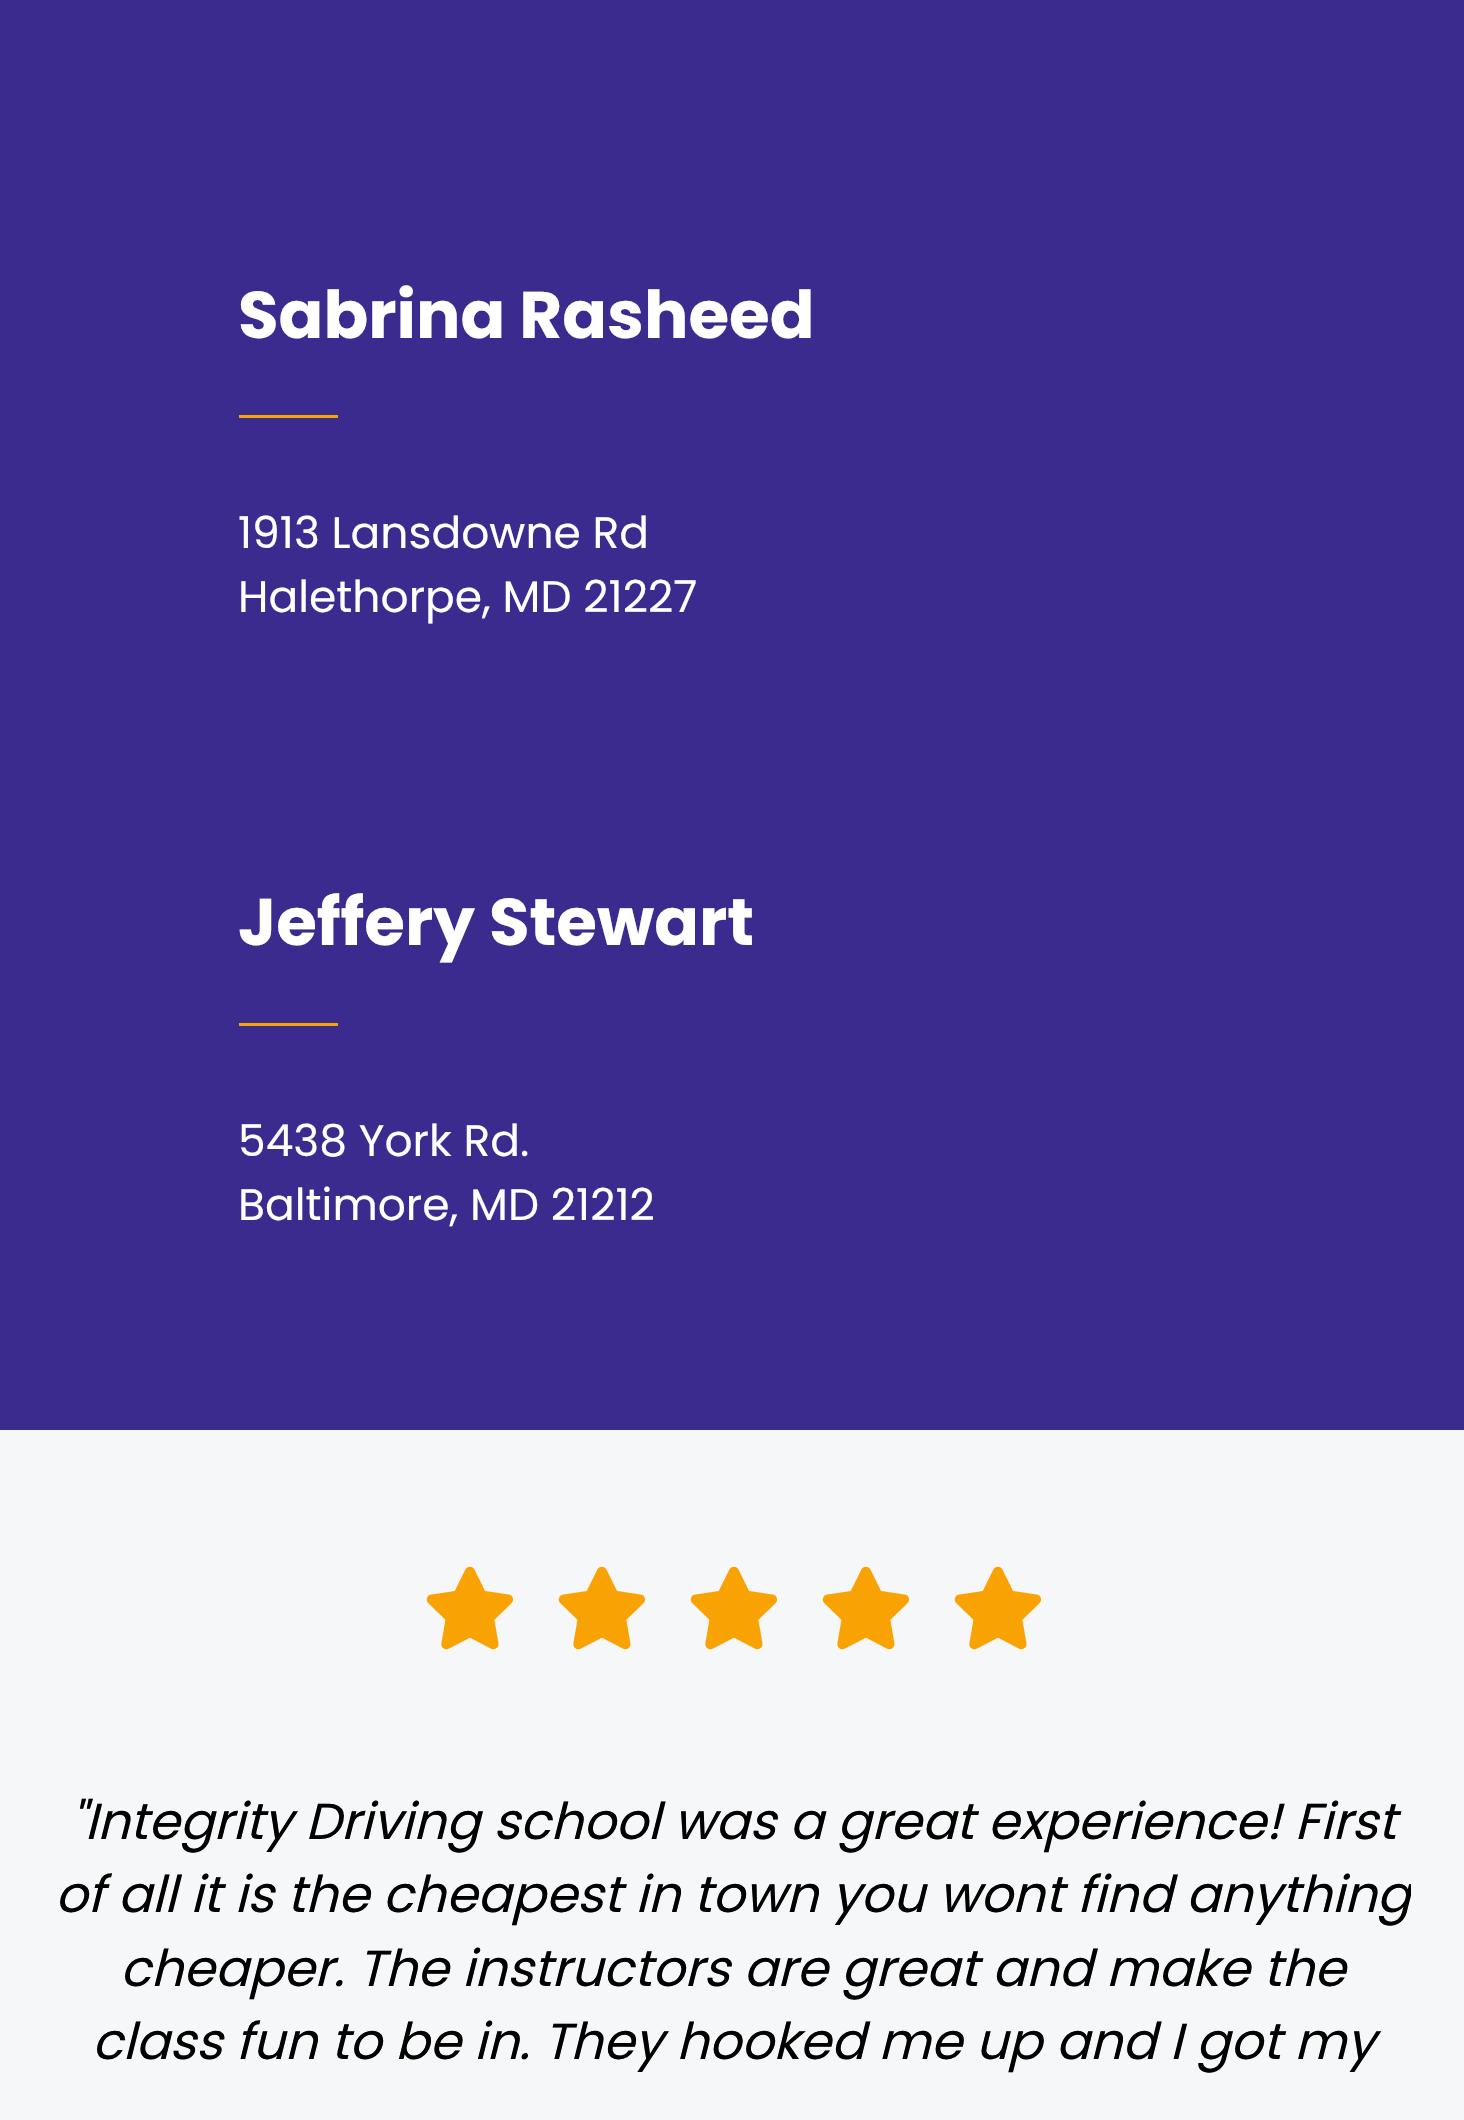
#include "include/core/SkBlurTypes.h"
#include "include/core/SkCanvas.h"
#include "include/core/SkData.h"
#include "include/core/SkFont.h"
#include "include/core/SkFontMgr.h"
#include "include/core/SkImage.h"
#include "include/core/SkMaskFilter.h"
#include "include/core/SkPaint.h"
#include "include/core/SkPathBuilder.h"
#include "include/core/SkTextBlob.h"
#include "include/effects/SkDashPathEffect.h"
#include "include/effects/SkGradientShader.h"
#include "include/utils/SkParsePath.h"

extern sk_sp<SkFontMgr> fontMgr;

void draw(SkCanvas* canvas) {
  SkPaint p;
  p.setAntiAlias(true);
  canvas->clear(SkColorSetRGB(59, 43, 143));
  p.setColor(SkColorSetRGB(245, 166, 7));
  canvas->drawRect(SkRect::MakeLTRB(239, 415, 338, 418), p);
  canvas->drawRect(SkRect::MakeLTRB(239, 1023, 338, 1026), p);
  p.setColor(SkColorSetRGB(246, 247, 248));
  canvas->drawRect(SkRect::MakeLTRB(0, 1430, 1464, 2120), p);
  canvas->drawImageRect(SkImages::DeferredFromEncodedData(SkData::MakeFromFileName("images/1.png")), SkRect::MakeLTRB(426, 1566, 513, 1650), SkSamplingOptions());
  canvas->drawImageRect(SkImages::DeferredFromEncodedData(SkData::MakeFromFileName("images/1.png")), SkRect::MakeLTRB(558, 1566, 645, 1650), SkSamplingOptions());
  canvas->drawImageRect(SkImages::DeferredFromEncodedData(SkData::MakeFromFileName("images/1.png")), SkRect::MakeLTRB(690, 1566, 777, 1650), SkSamplingOptions());
  canvas->drawImageRect(SkImages::DeferredFromEncodedData(SkData::MakeFromFileName("images/1.png")), SkRect::MakeLTRB(822, 1566, 909, 1650), SkSamplingOptions());
  canvas->drawImageRect(SkImages::DeferredFromEncodedData(SkData::MakeFromFileName("images/1.png")), SkRect::MakeLTRB(954, 1566, 1041, 1650), SkSamplingOptions());
  SkFont font1(fontMgr->matchFamilyStyle("Poppins", SkFontStyle::Bold()), 66);
  font1.setSubpixel(true);
  p.setColor(SK_ColorWHITE);
  canvas->drawString("Sabrina Rasheed", 238, 338, font1, p);
  SkFont font2(fontMgr->matchFamilyStyle("Poppins", SkFontStyle::Normal()), 44);
  font2.setSubpixel(true);
  canvas->drawString("1913 Lansdowne Rd", 238, 548, font2, p);
  canvas->drawString("Halethorpe, MD 21227", 238, 612, font2, p);
  canvas->drawString("Jeffery Stewart", 238, 945, font1, p);
  canvas->drawString("5438 York Rd.", 238, 1156, font2, p);
  canvas->drawString("Baltimore, MD 21212", 238, 1220, font2, p);
  SkFont font3(fontMgr->matchFamilyStyle("Poppins", SkFontStyle::Italic()), 50.6f);
  font3.setSubpixel(true);
  p.setColor(SK_ColorBLACK);
  canvas->drawString("\"Integrity Driving school was a great experience! First", 70, 1839, font3, p);
  canvas->save();
  canvas->clipRect(SkRect::MakeLTRB(55, 1788, 1411, 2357));
  canvas->drawString("of all it is the cheapest in town you wont find anything", 55, 1912, font3, p);
  canvas->restore();
  canvas->drawString("cheaper. The instructors are great and make the", 120, 1986, font3, p);
  canvas->drawString("class fun to be in. They hooked me up and I got my", 92, 2059, font3, p);
}
